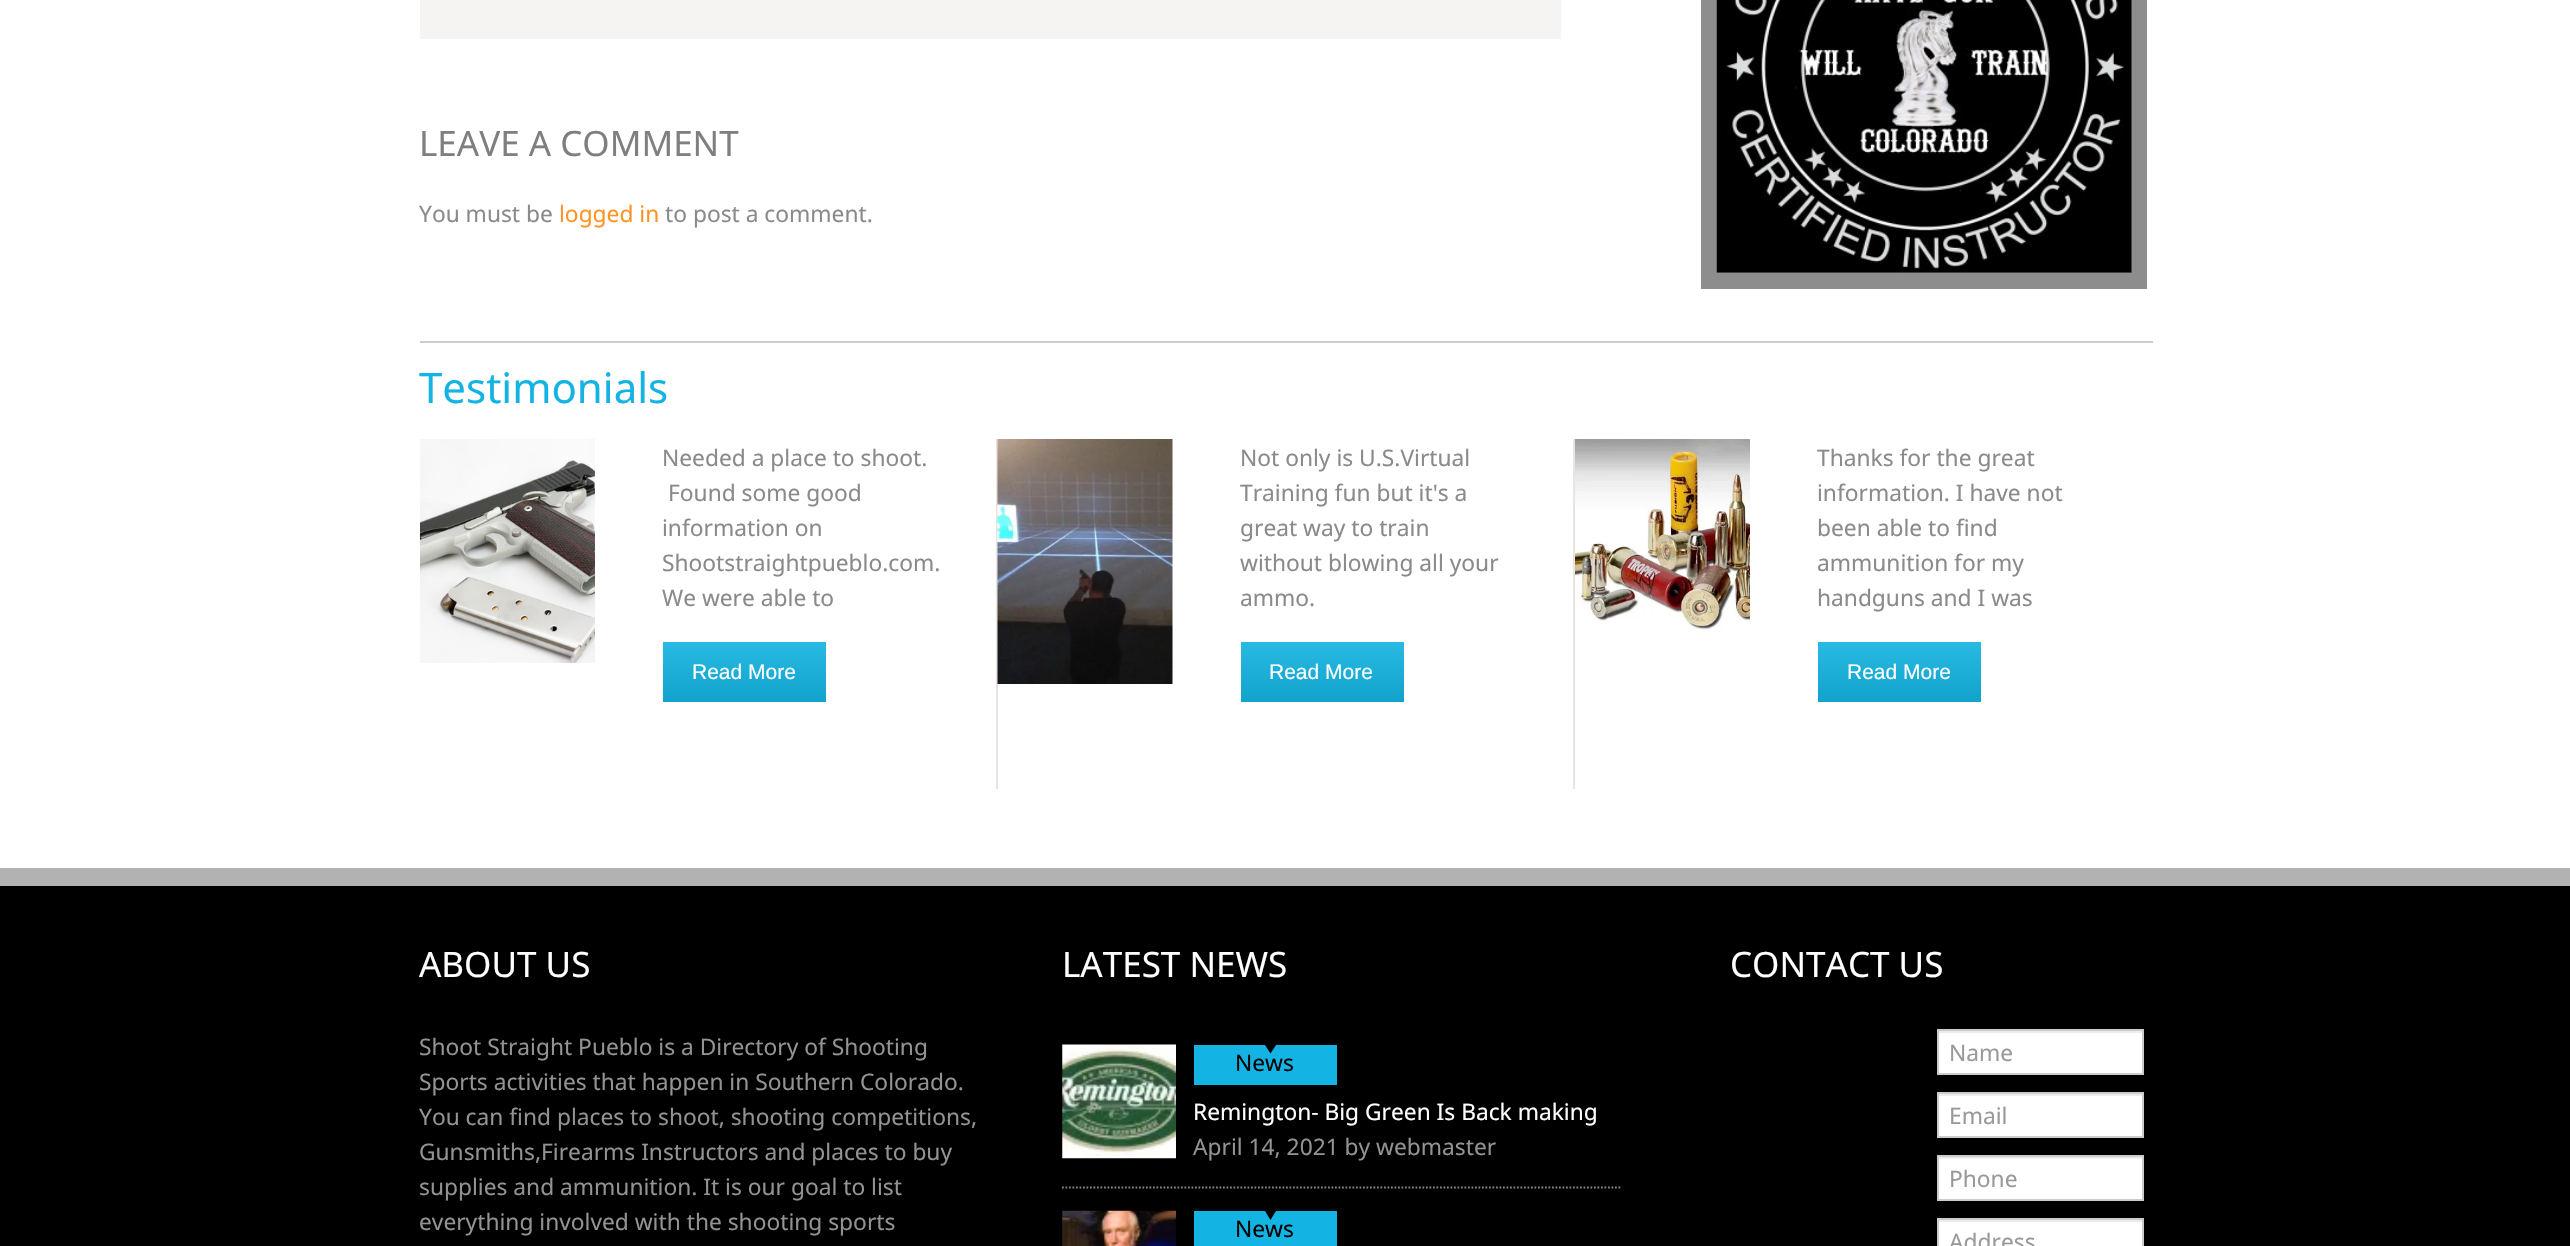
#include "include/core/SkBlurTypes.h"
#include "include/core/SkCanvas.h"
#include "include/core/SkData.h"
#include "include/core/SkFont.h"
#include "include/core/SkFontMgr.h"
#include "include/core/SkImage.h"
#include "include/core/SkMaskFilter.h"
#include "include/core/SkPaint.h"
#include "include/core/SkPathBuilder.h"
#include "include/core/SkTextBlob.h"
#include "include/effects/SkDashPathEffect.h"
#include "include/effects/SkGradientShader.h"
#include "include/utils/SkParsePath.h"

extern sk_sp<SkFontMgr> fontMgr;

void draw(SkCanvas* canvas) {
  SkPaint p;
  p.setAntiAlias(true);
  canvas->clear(SK_ColorWHITE);
  p.setColor(SkColorSetRGB(246, 243, 243));
  canvas->drawRect(SkRect::MakeLTRB(420, 0, 1561, 39), p);
  p.setStyle(SkPaint::kStroke_Style);
  p.setStrokeWidth(16);
  p.setColor(SkColorSetRGB(141, 141, 141));
  canvas->drawRect(SkRect::MakeLTRB(1709, -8, 2139, 281), p);
  canvas->drawImageRect(SkImages::DeferredFromEncodedData(SkData::MakeFromFileName("images/1.png")), SkRect::MakeLTRB(1716, 0, 2132, 273), SkSamplingOptions());
  p.setStyle(SkPaint::kFill_Style);
  p.setColor(SkColorSetRGB(204, 204, 204));
  canvas->drawRect(SkRect::MakeLTRB(420, 341, 2153, 343), p);
  p.setColor(SkColorSetRGB(234, 227, 225));
  canvas->drawRect(SkRect::MakeLTRB(996, 439, 998, 789), p);
  canvas->drawImageRect(SkImages::DeferredFromEncodedData(SkData::MakeFromFileName("images/2.png")), SkRect::MakeLTRB(420, 439, 595, 663), SkSamplingOptions());
  {
    const SkColor colors[] = {SkColorSetRGB(41, 186, 228), SkColorSetRGB(18, 163, 205)};
    const float stops[] = {0, 1};
    const SkPoint ends[] = {{745, 642}, {745, 702}};
    p.setShader(SkGradientShader::MakeLinear(ends, colors, stops, 2, SkTileMode::kClamp));
    p.setAlpha(255);
  }
  canvas->drawRect(SkRect::MakeLTRB(663, 642, 826, 702), p);
  p.setShader(nullptr);
  p.setColor(SkColorSetRGB(234, 227, 225));
  canvas->drawRect(SkRect::MakeLTRB(1573, 439, 1575, 789), p);
  canvas->drawImageRect(SkImages::DeferredFromEncodedData(SkData::MakeFromFileName("images/3.png")), SkRect::MakeLTRB(997, 439, 1173, 684), SkSamplingOptions());
  {
    const SkColor colors[] = {SkColorSetRGB(41, 186, 228), SkColorSetRGB(18, 163, 205)};
    const float stops[] = {0, 1};
    const SkPoint ends[] = {{1322, 642}, {1322, 702}};
    p.setShader(SkGradientShader::MakeLinear(ends, colors, stops, 2, SkTileMode::kClamp));
    p.setAlpha(255);
  }
  canvas->drawRect(SkRect::MakeLTRB(1241, 642, 1404, 702), p);
  canvas->drawImageRect(SkImages::DeferredFromEncodedData(SkData::MakeFromFileName("images/4.png")), SkRect::MakeLTRB(1575, 439, 1750, 629), SkSamplingOptions());
  {
    const SkColor colors[] = {SkColorSetRGB(41, 186, 228), SkColorSetRGB(18, 163, 205)};
    const float stops[] = {0, 1};
    const SkPoint ends[] = {{1900, 642}, {1900, 702}};
    p.setShader(SkGradientShader::MakeLinear(ends, colors, stops, 2, SkTileMode::kClamp));
    p.setAlpha(255);
  }
  canvas->drawRect(SkRect::MakeLTRB(1818, 642, 1981, 702), p);
  p.setShader(nullptr);
  p.setColor(SK_ColorBLACK);
  canvas->drawRect(SkRect::MakeLTRB(0, 886, 2570, 1246), p);
  p.setColor(SkColorSetRGB(178, 178, 178));
  canvas->drawRect(SkRect::MakeLTRB(0, 868, 2570, 886), p);
  p.setStyle(SkPaint::kStroke_Style);
  p.setStrokeWidth(1.8f);
  p.setColor(SkColorSetRGB(136, 136, 136));
  p.setPathEffect(SkDashPathEffect::Make({{1.75f, 1.75f}}, 0));
  canvas->drawPath(SkPathBuilder().moveTo(1062, 1187.5f).lineTo(1622, 1187.5f).detach(), p);
  p.setPathEffect(nullptr);
  canvas->drawImageRect(SkImages::DeferredFromEncodedData(SkData::MakeFromFileName("images/5.png")), SkRect::MakeLTRB(1062, 1044, 1176, 1159), SkSamplingOptions());
  p.setStyle(SkPaint::kFill_Style);
  p.setColor(SkColorSetRGB(19, 180, 227));
  canvas->drawRect(SkRect::MakeLTRB(1194, 1045, 1337, 1085), p);
  p.setColor(SK_ColorBLACK);
  canvas->drawPath(SkPathBuilder().moveTo(1265, 1045).lineTo(1276, 1045).lineTo(1270.5f, 1053.5f).close().detach(), p);
  canvas->drawImageRect(SkImages::DeferredFromEncodedData(SkData::MakeFromFileName("images/6.png")), SkRect::MakeLTRB(1062, 1210, 1176, 1246), SkSamplingOptions());
  p.setColor(SkColorSetRGB(19, 180, 227));
  canvas->drawRect(SkRect::MakeLTRB(1194, 1211, 1337, 1246), p);
  p.setColor(SK_ColorBLACK);
  canvas->drawPath(SkPathBuilder().moveTo(1265, 1211).lineTo(1276, 1211).lineTo(1270.5f, 1220).close().detach(), p);
  p.setColor(SK_ColorWHITE);
  canvas->drawRect(SkRect::MakeLTRB(1939, 1033, 2142, 1073), p);
  p.setColor(SkColorSetRGB(236, 236, 236));
  canvas->drawRect(SkRect::MakeLTRB(1939, 1031, 2142, 1033), p);
  p.setStyle(SkPaint::kStroke_Style);
  p.setStrokeWidth(2);
  p.setColor(SkColorSetRGB(204, 204, 204));
  canvas->drawRect(SkRect::MakeLTRB(1938, 1030, 2143, 1074), p);
  p.setStyle(SkPaint::kFill_Style);
  p.setColor(SK_ColorWHITE);
  canvas->drawRect(SkRect::MakeLTRB(1939, 1096, 2142, 1136), p);
  p.setColor(SkColorSetRGB(236, 236, 236));
  canvas->drawRect(SkRect::MakeLTRB(1939, 1094, 2142, 1096), p);
  p.setStyle(SkPaint::kStroke_Style);
  p.setColor(SkColorSetRGB(204, 204, 204));
  canvas->drawRect(SkRect::MakeLTRB(1938, 1093, 2143, 1137), p);
  p.setStyle(SkPaint::kFill_Style);
  p.setColor(SK_ColorWHITE);
  canvas->drawRect(SkRect::MakeLTRB(1939, 1159, 2142, 1199), p);
  p.setColor(SkColorSetRGB(236, 236, 236));
  canvas->drawRect(SkRect::MakeLTRB(1939, 1157, 2142, 1159), p);
  p.setStyle(SkPaint::kStroke_Style);
  p.setColor(SkColorSetRGB(204, 204, 204));
  canvas->drawRect(SkRect::MakeLTRB(1938, 1156, 2143, 1200), p);
  p.setStyle(SkPaint::kFill_Style);
  p.setColor(SK_ColorWHITE);
  canvas->drawRect(SkRect::MakeLTRB(1939, 1222, 2142, 1246), p);
  p.setColor(SkColorSetRGB(236, 236, 236));
  canvas->drawRect(SkRect::MakeLTRB(1939, 1220, 2142, 1222), p);
  p.setStyle(SkPaint::kStroke_Style);
  p.setColor(SkColorSetRGB(204, 204, 204));
  canvas->drawRect(SkRect::MakeLTRB(1938, 1219, 2143, 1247), p);
  SkFont font1(fontMgr->matchFamilyStyle("Noto Sans", SkFontStyle::Normal()), 35);
  font1.setSubpixel(true);
  p.setStyle(SkPaint::kFill_Style);
  p.setColor(SkColorSetRGB(127, 127, 127));
  canvas->drawString("LEAVE A COMMENT", 419, 156, font1, p);
  SkFont font2(fontMgr->matchFamilyStyle("Noto Sans", SkFontStyle::Normal()), 22.75f);
  font2.setSubpixel(true);
  p.setColor(SkColorSetRGB(138, 138, 138));
  canvas->drawString("You must be", 419, 222, font2, p);
  p.setColor(SkColorSetRGB(255, 148, 38));
  canvas->drawString("logged in", 559, 222, font2, p);
  p.setColor(SkColorSetRGB(138, 138, 138));
  canvas->drawString("to post a comment.", 665, 222, font2, p);
  SkFont font3(fontMgr->matchFamilyStyle("Noto Sans", SkFontStyle::Normal()), 42);
  font3.setSubpixel(true);
  p.setColor(SkColorSetRGB(19, 180, 227));
  canvas->drawString("Testimonials", 419, 403, font3, p);
  p.setColor(SkColorSetRGB(138, 138, 138));
  canvas->drawString("Needed a place to shoot.", 662, 466, font2, p);
  canvas->drawString("Found some good", 668, 501, font2, p);
  canvas->drawString("information on", 662, 536, font2, p);
  canvas->drawString("Shootstraightpueblo.com.", 662, 571, font2, p);
  canvas->drawString("We were able to", 662, 606, font2, p);
  SkFont font4(fontMgr->matchFamilyStyle("Liberation Sans", SkFontStyle::Normal()), 21);
  font4.setSubpixel(true);
  p.setColor(SK_ColorWHITE);
  canvas->drawString("Read More", 692, 679, font4, p);
  p.setColor(SkColorSetRGB(138, 138, 138));
  canvas->drawString("Not only is U.S.Virtual", 1240, 466, font2, p);
  canvas->drawString("Training fun but it's a", 1240, 501, font2, p);
  canvas->drawString("great way to train", 1240, 536, font2, p);
  canvas->drawString("without blowing all your", 1240, 571, font2, p);
  canvas->drawString("ammo.", 1240, 606, font2, p);
  p.setColor(SK_ColorWHITE);
  canvas->drawString("Read More", 1269, 679, font4, p);
  p.setColor(SkColorSetRGB(138, 138, 138));
  canvas->drawString("Thanks for the great", 1817, 466, font2, p);
  canvas->drawString("information. I have not", 1817, 501, font2, p);
  canvas->drawString("been able to find", 1817, 536, font2, p);
  canvas->drawString("ammunition for my", 1817, 571, font2, p);
  canvas->drawString("handguns and I was", 1817, 606, font2, p);
  p.setColor(SK_ColorWHITE);
  canvas->drawString("Read More", 1847, 679, font4, p);
  canvas->drawString("ABOUT US", 419, 977, font1, p);
  p.setColor(SkColorSetRGB(147, 147, 147));
  canvas->drawString("Shoot Straight Pueblo is a Directory of Shooting", 419, 1055, font2, p);
  canvas->drawString("Sports activities that happen in Southern Colorado.", 419, 1090, font2, p);
  canvas->drawString("You can find places to shoot, shooting competitions,", 419, 1125, font2, p);
  canvas->drawString("Gunsmiths,Firearms Instructors and places to buy", 419, 1160, font2, p);
  canvas->drawString("supplies and ammunition. It is our goal to list", 419, 1195, font2, p);
  canvas->drawString("everything involved with the shooting sports", 419, 1230, font2, p);
  p.setColor(SK_ColorWHITE);
  canvas->drawString("LATEST NEWS", 1062, 977, font1, p);
  p.setColor(SK_ColorBLACK);
  canvas->drawString("News", 1235, 1071, font2, p);
  p.setColor(SK_ColorWHITE);
  canvas->drawString("Remington- Big Green Is Back making", 1193, 1120, font2, p);
  p.setColor(SkColorSetRGB(147, 147, 147));
  canvas->drawString("April 14, 2021 by webmaster", 1193, 1155, font2, p);
  p.setColor(SK_ColorBLACK);
  canvas->drawString("News", 1235, 1237, font2, p);
  p.setColor(SK_ColorWHITE);
  canvas->drawString("CONTACT US", 1730, 977, font1, p);
  p.setColor(SkColorSetRGB(153, 153, 153));
  canvas->drawString("Name", 1949, 1061, font2, p);
  canvas->drawString("Email", 1949, 1124, font2, p);
  canvas->drawString("Phone", 1949, 1187, font2, p);
  canvas->drawString("Address", 1949, 1250, font2, p);
}
